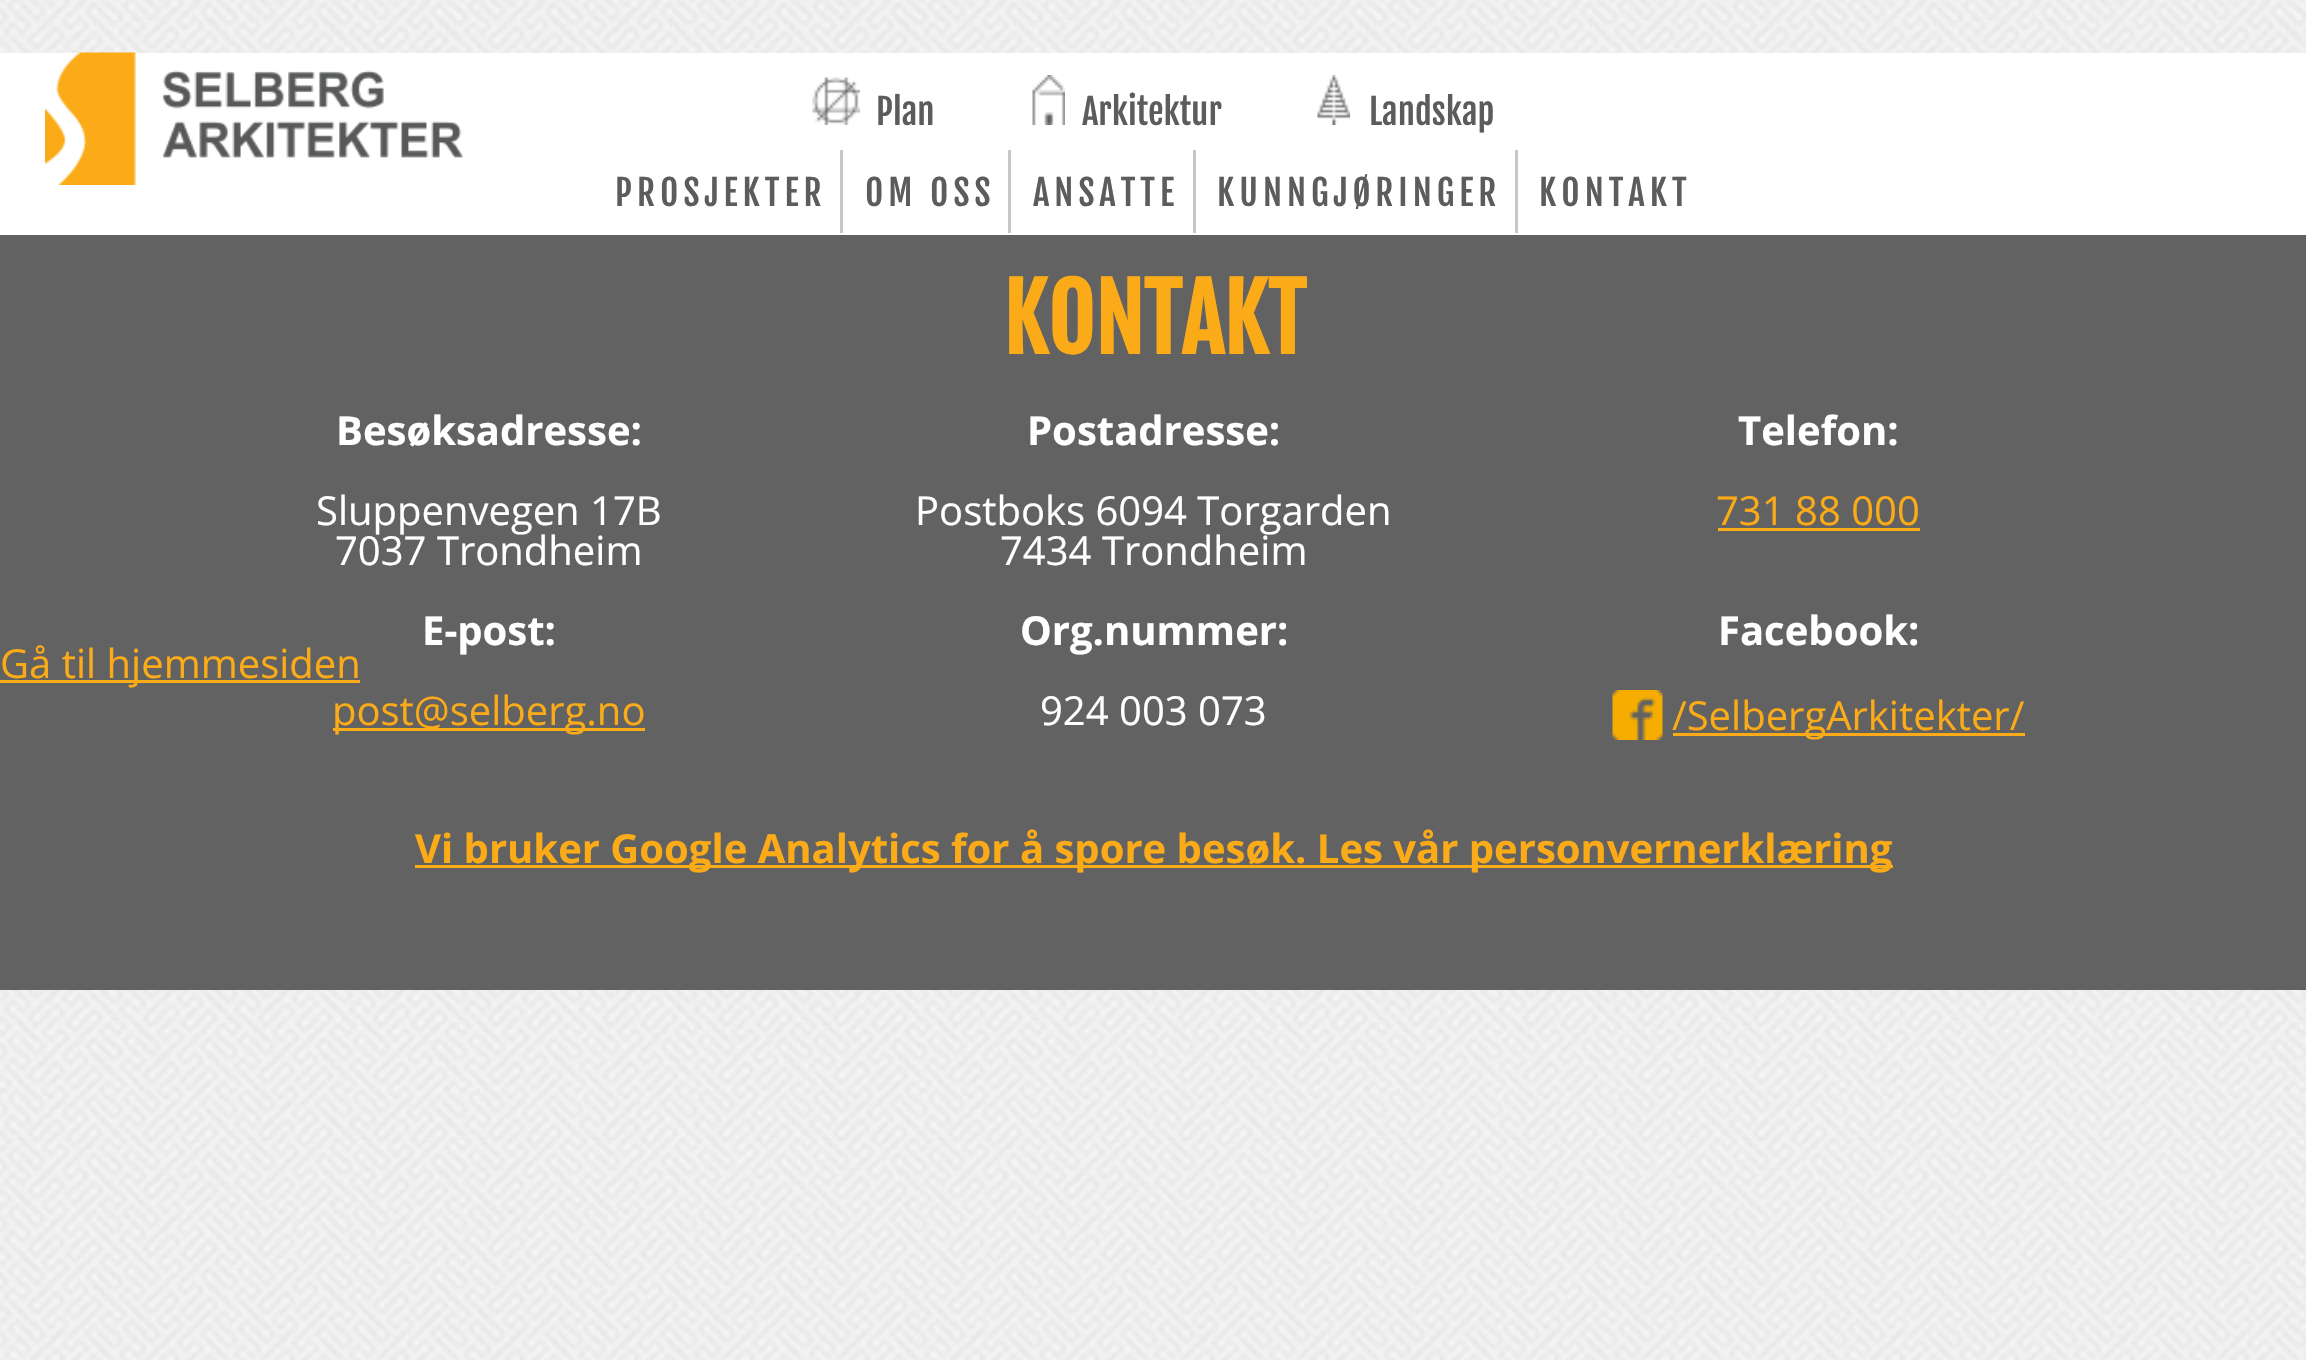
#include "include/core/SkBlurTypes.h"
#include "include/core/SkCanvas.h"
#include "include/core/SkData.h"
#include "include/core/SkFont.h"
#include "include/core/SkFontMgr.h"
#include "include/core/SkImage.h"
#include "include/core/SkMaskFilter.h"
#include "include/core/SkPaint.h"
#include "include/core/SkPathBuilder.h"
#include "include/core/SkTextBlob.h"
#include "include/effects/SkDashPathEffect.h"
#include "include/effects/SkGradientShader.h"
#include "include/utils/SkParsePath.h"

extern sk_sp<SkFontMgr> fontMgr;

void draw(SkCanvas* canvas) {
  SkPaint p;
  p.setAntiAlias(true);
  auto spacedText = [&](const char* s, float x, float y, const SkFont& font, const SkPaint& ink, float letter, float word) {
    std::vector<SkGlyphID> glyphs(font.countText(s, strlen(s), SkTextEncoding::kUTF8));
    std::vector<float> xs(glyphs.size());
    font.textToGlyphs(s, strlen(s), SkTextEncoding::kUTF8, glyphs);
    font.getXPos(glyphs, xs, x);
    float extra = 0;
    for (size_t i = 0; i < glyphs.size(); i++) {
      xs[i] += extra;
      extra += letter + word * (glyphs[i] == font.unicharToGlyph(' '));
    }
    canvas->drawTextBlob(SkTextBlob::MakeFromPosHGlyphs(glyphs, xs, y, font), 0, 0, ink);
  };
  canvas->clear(SK_ColorWHITE);
  canvas->drawImageRect(SkImages::DeferredFromEncodedData(SkData::MakeFromFileName("images/1.png")), SkRect::MakeLTRB(0, 0, 2306, 1360), SkSamplingOptions());
  p.setColor(SK_ColorWHITE);
  canvas->drawRect(SkRect::MakeLTRB(0, 53, 2306, 235), p);
  canvas->drawImageRect(SkImages::DeferredFromEncodedData(SkData::MakeFromFileName("images/2.png")), SkRect::MakeLTRB(45, 52, 463, 185), SkSamplingOptions());
  canvas->drawImageRect(SkImages::DeferredFromEncodedData(SkData::MakeFromFileName("images/3.png")), SkRect::MakeLTRB(812, 77, 860, 125), SkSamplingOptions());
  canvas->drawImageRect(SkImages::DeferredFromEncodedData(SkData::MakeFromFileName("images/4.png")), SkRect::MakeLTRB(1032, 75, 1065, 125), SkSamplingOptions());
  canvas->drawImageRect(SkImages::DeferredFromEncodedData(SkData::MakeFromFileName("images/5.png")), SkRect::MakeLTRB(1317, 75, 1350, 125), SkSamplingOptions());
  p.setColor(SkColorSetRGB(198, 198, 198));
  canvas->drawRect(SkRect::MakeLTRB(840, 150, 843, 233), p);
  canvas->drawRect(SkRect::MakeLTRB(1008, 150, 1011, 233), p);
  canvas->drawRect(SkRect::MakeLTRB(1193, 150, 1196, 233), p);
  canvas->drawRect(SkRect::MakeLTRB(1515, 150, 1518, 233), p);
  p.setColor(SkColorSetRGB(98, 98, 98));
  canvas->drawRect(SkRect::MakeLTRB(0, 235, 2306, 990), p);
  p.setColor(SkColorSetRGB(251, 171, 24));
  canvas->drawRect(SkRect::MakeLTRB(0, 680, 360, 683), p);
  canvas->drawRect(SkRect::MakeLTRB(1718, 528, 1920, 531), p);
  canvas->drawRect(SkRect::MakeLTRB(333, 728, 645, 731), p);
  canvas->drawImageRect(SkImages::DeferredFromEncodedData(SkData::MakeFromFileName("images/6.png")), SkRect::MakeLTRB(1612, 690, 1663, 740), SkSamplingOptions());
  canvas->drawRect(SkRect::MakeLTRB(1673, 733, 2025, 736), p);
  canvas->drawRect(SkRect::MakeLTRB(415, 865, 1893, 868), p);
  SkFont font1(fontMgr->matchFamilyStyle("Fjalla One", SkFontStyle::Normal()), 35);
  font1.setSubpixel(true);
  p.setColor(SkColorSetRGB(92, 92, 92));
  canvas->drawString("Plan", 876, 125, font1, p);
  canvas->drawString("Arkitektur", 1082, 125, font1, p);
  canvas->drawString("Landskap", 1369, 125, font1, p);
  spacedText("PROSJEKTER", 615, 206, font1, p, 5, 0);
  spacedText("OM OSS", 865, 206, font1, p, 5, 0);
  spacedText("ANSATTE", 1033, 206, font1, p, 5, 0);
  spacedText("KUNNGJØRINGER", 1217, 206, font1, p, 5, 0);
  spacedText("KONTAKT", 1539, 206, font1, p, 5, 0);
  SkFont font2(fontMgr->matchFamilyStyle("Open Sans", SkFontStyle::Normal()), 40);
  font2.setSubpixel(true);
  p.setColor(SkColorSetRGB(251, 171, 24));
  canvas->drawString("Gå til hjemmesiden", 0, 678, font2, p);
  SkFont font3(fontMgr->matchFamilyStyle("Fjalla One", SkFontStyle::Bold()), 90);
  font3.setSubpixel(true);
  canvas->drawString("KONTAKT", 1003, 354, font3, p);
  SkFont font4(fontMgr->matchFamilyStyle("Open Sans", SkFontStyle::Bold()), 40);
  font4.setSubpixel(true);
  p.setColor(SK_ColorWHITE);
  canvas->drawString("Besøksadresse:", 336, 445, font4, p);
  canvas->drawString("Sluppenvegen 17B", 316, 525, font2, p);
  canvas->drawString("7037 Trondheim", 335, 565, font2, p);
  canvas->drawString("Postadresse:", 1027, 445, font4, p);
  canvas->drawString("Postboks 6094 Torgarden", 915, 525, font2, p);
  canvas->drawString("7434 Trondheim", 1000, 565, font2, p);
  canvas->drawString("Telefon:", 1738, 445, font4, p);
  p.setColor(SkColorSetRGB(251, 171, 24));
  canvas->drawString("731 88 000", 1716, 525, font2, p);
  p.setColor(SK_ColorWHITE);
  canvas->drawString("E-post:", 422, 645, font4, p);
  p.setColor(SkColorSetRGB(251, 171, 24));
  canvas->drawString("post@selberg.no", 332, 725, font2, p);
  p.setColor(SK_ColorWHITE);
  canvas->drawString("Org.nummer:", 1020, 645, font4, p);
  canvas->drawString("924 003 073", 1040, 725, font2, p);
  canvas->drawString("Facebook:", 1718, 645, font4, p);
  p.setColor(SkColorSetRGB(251, 171, 24));
  canvas->drawString("/SelbergArkitekter/", 1672, 730, font2, p);
  canvas->drawString("Vi bruker Google Analytics for å spore besøk. Les vår personvernerklæring", 415, 863, font4, p);
}
